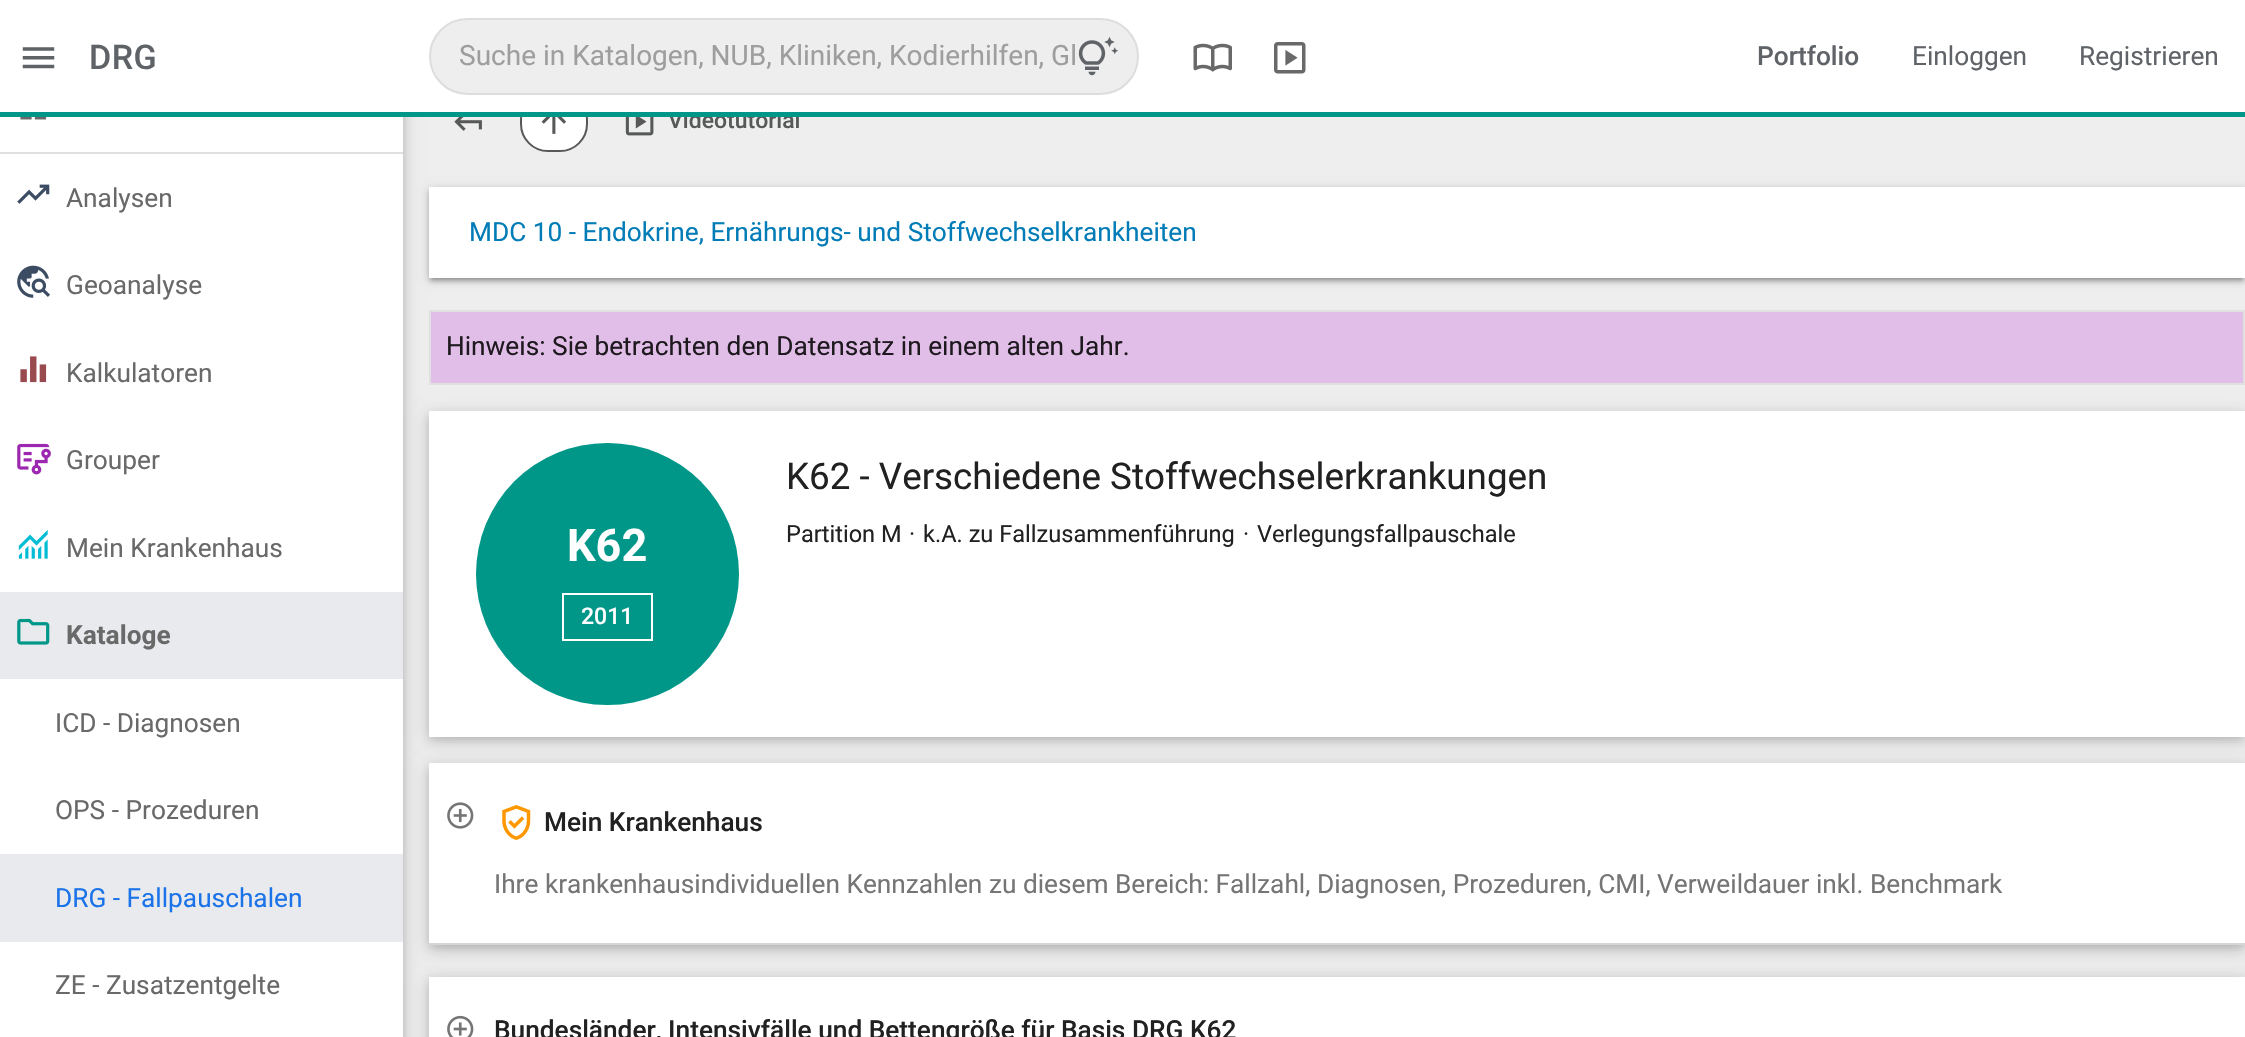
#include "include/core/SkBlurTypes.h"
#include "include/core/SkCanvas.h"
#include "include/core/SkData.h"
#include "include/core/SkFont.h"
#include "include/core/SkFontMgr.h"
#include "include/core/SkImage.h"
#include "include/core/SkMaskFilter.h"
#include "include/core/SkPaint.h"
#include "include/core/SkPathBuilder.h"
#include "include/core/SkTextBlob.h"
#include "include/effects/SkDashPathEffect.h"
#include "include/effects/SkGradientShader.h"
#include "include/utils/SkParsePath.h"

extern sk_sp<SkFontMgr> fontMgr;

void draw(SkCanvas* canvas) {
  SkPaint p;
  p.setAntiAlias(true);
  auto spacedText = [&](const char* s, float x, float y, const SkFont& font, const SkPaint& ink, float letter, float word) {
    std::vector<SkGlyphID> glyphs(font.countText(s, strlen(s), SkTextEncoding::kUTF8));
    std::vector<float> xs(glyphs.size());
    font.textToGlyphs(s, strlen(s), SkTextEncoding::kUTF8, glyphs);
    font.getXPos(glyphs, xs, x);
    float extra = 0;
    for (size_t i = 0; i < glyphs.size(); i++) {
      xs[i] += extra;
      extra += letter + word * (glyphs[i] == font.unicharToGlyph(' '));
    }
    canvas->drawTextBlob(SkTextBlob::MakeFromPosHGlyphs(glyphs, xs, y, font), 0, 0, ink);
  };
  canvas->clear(SkColorSetRGB(238, 238, 238));
  p.setColor(SkColorSetARGB(31, 0, 0, 0));
  p.setMaskFilter(SkMaskFilter::MakeBlur(kNormal_SkBlurStyle, 9));
  canvas->drawRect(SkRect::MakeLTRB(0, 68, 403, 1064), p);
  p.setMaskFilter(nullptr);
  p.setColor(SkColorSetARGB(41, 0, 0, 0));
  p.setMaskFilter(SkMaskFilter::MakeBlur(kNormal_SkBlurStyle, 4.5f));
  canvas->drawRect(SkRect::MakeLTRB(0, 68, 403, 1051), p);
  p.setMaskFilter(nullptr);
  p.setColor(SK_ColorWHITE);
  canvas->drawRect(SkRect::MakeLTRB(0, 117, 403, 592), p);
  canvas->drawImageRect(SkImages::DeferredFromEncodedData(SkData::MakeFromFileName("images/5.png")), SkRect::MakeLTRB(20, 117, 47, 120), SkSamplingOptions());
  p.setColor(SkColorSetRGB(224, 224, 224));
  canvas->drawRect(SkRect::MakeLTRB(0, 152, 403, 154), p);
  canvas->drawImageRect(SkImages::DeferredFromEncodedData(SkData::MakeFromFileName("images/6.png")), SkRect::MakeLTRB(17, 184, 50, 204), SkSamplingOptions());
  canvas->drawImageRect(SkImages::DeferredFromEncodedData(SkData::MakeFromFileName("images/7.png")), SkRect::MakeLTRB(17, 265, 50, 298), SkSamplingOptions());
  canvas->drawImageRect(SkImages::DeferredFromEncodedData(SkData::MakeFromFileName("images/8.png")), SkRect::MakeLTRB(20, 356, 47, 383), SkSamplingOptions());
  canvas->drawImageRect(SkImages::DeferredFromEncodedData(SkData::MakeFromFileName("images/9.png")), SkRect::MakeLTRB(17, 443, 51, 475), SkSamplingOptions());
  canvas->drawImageRect(SkImages::DeferredFromEncodedData(SkData::MakeFromFileName("images/10.png")), SkRect::MakeLTRB(18, 530, 48, 559), SkSamplingOptions());
  p.setColor(SkColorSetRGB(232, 234, 237));
  canvas->drawRect(SkRect::MakeLTRB(0, 592, 403, 679), p);
  canvas->drawImageRect(SkImages::DeferredFromEncodedData(SkData::MakeFromFileName("images/11.png")), SkRect::MakeLTRB(17, 618, 50, 645), SkSamplingOptions());
  p.setColor(SK_ColorWHITE);
  canvas->drawRect(SkRect::MakeLTRB(0, 679, 403, 1037), p);
  p.setColor(SkColorSetRGB(232, 234, 237));
  canvas->drawRect(SkRect::MakeLTRB(0, 854, 403, 942), p);
  canvas->drawImageRect(SkImages::DeferredFromEncodedData(SkData::MakeFromFileName("images/12.png")), SkRect::MakeLTRB(454, 117, 482, 131), SkSamplingOptions());
  p.setColor(SK_ColorWHITE);
  canvas->drawRoundRect(SkRect::MakeLTRB(521, 92, 587, 151), 27, 27, p);
  p.setStyle(SkPaint::kStroke_Style);
  p.setStrokeWidth(2);
  p.setColor(SkColorSetRGB(86, 89, 88));
  canvas->drawRoundRect(SkRect::MakeLTRB(521, 92, 587, 151), 27, 27, p);
  canvas->drawImageRect(SkImages::DeferredFromEncodedData(SkData::MakeFromFileName("images/13.png")), SkRect::MakeLTRB(541, 117, 566, 134), SkSamplingOptions());
  canvas->drawImageRect(SkImages::DeferredFromEncodedData(SkData::MakeFromFileName("images/14.png")), SkRect::MakeLTRB(625, 117, 654, 136), SkSamplingOptions());
  p.setStyle(SkPaint::kFill_Style);
  p.setColor(SkColorSetARGB(51, 0, 0, 0));
  p.setMaskFilter(SkMaskFilter::MakeBlur(kNormal_SkBlurStyle, 4.5f));
  canvas->drawRect(SkRect::MakeLTRB(429, 189, 2245, 280), p);
  p.setMaskFilter(nullptr);
  p.setColor(SkColorSetARGB(31, 0, 0, 0));
  p.setMaskFilter(SkMaskFilter::MakeBlur(kNormal_SkBlurStyle, 1));
  canvas->drawRect(SkRect::MakeLTRB(432, 196, 2242, 280), p);
  p.setMaskFilter(nullptr);
  p.setColor(SkColorSetARGB(36, 0, 0, 0));
  p.setMaskFilter(SkMaskFilter::MakeBlur(kNormal_SkBlurStyle, 2));
  canvas->drawRect(SkRect::MakeLTRB(429, 191, 2245, 282), p);
  p.setMaskFilter(nullptr);
  p.setColor(SK_ColorWHITE);
  canvas->drawRect(SkRect::MakeLTRB(429, 187, 2245, 278), p);
  p.setColor(SkColorSetRGB(225, 190, 231));
  canvas->drawRect(SkRect::MakeLTRB(430, 311, 2244, 384), p);
  p.setStyle(SkPaint::kStroke_Style);
  p.setColor(SkColorSetRGB(224, 224, 224));
  canvas->drawRect(SkRect::MakeLTRB(430, 311, 2244, 384), p);
  p.setStyle(SkPaint::kFill_Style);
  p.setColor(SkColorSetARGB(31, 0, 0, 0));
  p.setMaskFilter(SkMaskFilter::MakeBlur(kNormal_SkBlurStyle, 9));
  canvas->drawRect(SkRect::MakeLTRB(429, 415, 2245, 740), p);
  p.setMaskFilter(nullptr);
  p.setColor(SkColorSetARGB(41, 0, 0, 0));
  p.setMaskFilter(SkMaskFilter::MakeBlur(kNormal_SkBlurStyle, 4.5f));
  canvas->drawRect(SkRect::MakeLTRB(429, 415, 2245, 740), p);
  p.setMaskFilter(nullptr);
  p.setColor(SK_ColorWHITE);
  canvas->drawRect(SkRect::MakeLTRB(429, 411, 2245, 737), p);
  p.setColor(SkColorSetRGB(0, 150, 136));
  canvas->drawRoundRect(SkRect::MakeLTRB(476, 443, 739, 705), 131, 131, p);
  p.setStyle(SkPaint::kStroke_Style);
  p.setColor(SK_ColorWHITE);
  canvas->drawRect(SkRect::MakeLTRB(563, 594, 652, 640), p);
  p.setStyle(SkPaint::kFill_Style);
  p.setColor(SkColorSetARGB(31, 0, 0, 0));
  p.setMaskFilter(SkMaskFilter::MakeBlur(kNormal_SkBlurStyle, 9));
  canvas->drawRect(SkRect::MakeLTRB(429, 767, 2245, 949), p);
  p.setMaskFilter(nullptr);
  p.setColor(SkColorSetARGB(41, 0, 0, 0));
  p.setMaskFilter(SkMaskFilter::MakeBlur(kNormal_SkBlurStyle, 4.5f));
  canvas->drawRect(SkRect::MakeLTRB(429, 767, 2245, 949), p);
  p.setMaskFilter(nullptr);
  p.setColor(SK_ColorWHITE);
  canvas->drawRect(SkRect::MakeLTRB(429, 763, 2245, 943), p);
  p.setColor(SkColorSetRGB(214, 214, 214));
  canvas->drawRect(SkRect::MakeLTRB(429, 943, 2245, 945), p);
  canvas->drawImageRect(SkImages::DeferredFromEncodedData(SkData::MakeFromFileName("images/15.png")), SkRect::MakeLTRB(447, 802, 474, 829), SkSamplingOptions());
  canvas->drawImageRect(SkImages::DeferredFromEncodedData(SkData::MakeFromFileName("images/16.png")), SkRect::MakeLTRB(502, 805, 531, 840), SkSamplingOptions());
  p.setColor(SkColorSetARGB(31, 0, 0, 0));
  p.setMaskFilter(SkMaskFilter::MakeBlur(kNormal_SkBlurStyle, 9));
  canvas->drawRect(SkRect::MakeLTRB(429, 980, 2245, 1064), p);
  p.setMaskFilter(nullptr);
  p.setColor(SkColorSetARGB(41, 0, 0, 0));
  p.setMaskFilter(SkMaskFilter::MakeBlur(kNormal_SkBlurStyle, 4.5f));
  canvas->drawRect(SkRect::MakeLTRB(429, 980, 2245, 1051), p);
  p.setMaskFilter(nullptr);
  p.setColor(SK_ColorWHITE);
  canvas->drawRect(SkRect::MakeLTRB(429, 977, 2245, 1037), p);
  canvas->drawImageRect(SkImages::DeferredFromEncodedData(SkData::MakeFromFileName("images/17.png")), SkRect::MakeLTRB(447, 1015, 474, 1037), SkSamplingOptions());
  SkFont font1(fontMgr->matchFamilyStyle("Roboto", SkFontStyle::Normal()), 26.25f);
  font1.setSubpixel(true);
  p.setColor(SkColorSetRGB(105, 105, 105));
  canvas->drawString("Analysen", 66, 207, font1, p);
  canvas->drawString("Geoanalyse", 66, 294, font1, p);
  canvas->drawString("Kalkulatoren", 66, 382, font1, p);
  canvas->drawString("Grouper", 66, 469, font1, p);
  canvas->drawString("Mein Krankenhaus", 66, 557, font1, p);
  SkFont font2(fontMgr->matchFamilyStyle("Roboto", SkFontStyle::Bold()), 26.25f);
  font2.setSubpixel(true);
  canvas->drawString("Kataloge", 66, 644, font2, p);
  canvas->drawString("ICD - Diagnosen", 55, 732, font1, p);
  canvas->drawString("OPS - Prozeduren", 55, 819, font1, p);
  p.setColor(SkColorSetRGB(26, 115, 232));
  canvas->drawString("DRG - Fallpauschalen", 55, 907, font1, p);
  p.setColor(SkColorSetRGB(105, 105, 105));
  canvas->drawString("ZE - Zusatzentgelte", 55, 994, font1, p);
  SkFont font3(fontMgr->matchFamilyStyle("Roboto", SkFontStyle(500, SkFontStyle::kNormal_Width, SkFontStyle::kUpright_Slant)), 23);
  font3.setSubpixel(true);
  p.setColor(SkColorSetRGB(86, 89, 88));
  canvas->drawString("Videotutorial", 668, 128, font3, p);
  p.setColor(SK_ColorWHITE);
  canvas->drawRect(SkRect::MakeLTRB(0, 0, 2245, 112), p);
  canvas->drawImageRect(SkImages::DeferredFromEncodedData(SkData::MakeFromFileName("images/4.png")), SkRect::MakeLTRB(1274, 42, 1306, 74), SkSamplingOptions());
  canvas->drawImageRect(SkImages::DeferredFromEncodedData(SkData::MakeFromFileName("images/3.png")), SkRect::MakeLTRB(1193, 43, 1232, 72), SkSamplingOptions());
  p.setColor(SkColorSetRGB(238, 238, 238));
  canvas->drawRoundRect(SkRect::MakeLTRB(430, 19, 1138, 94), 37.5f, 37.5f, p);
  p.setStyle(SkPaint::kStroke_Style);
  p.setColor(SkColorSetRGB(221, 221, 221));
  canvas->drawRoundRect(SkRect::MakeLTRB(430, 19, 1138, 94), 37.5f, 37.5f, p);
  canvas->drawImageRect(SkImages::DeferredFromEncodedData(SkData::MakeFromFileName("images/2.png")), SkRect::MakeLTRB(1078, 37, 1118, 76), SkSamplingOptions());
  SkFont font4(fontMgr->matchFamilyStyle("Roboto", SkFontStyle::Normal()), 28);
  font4.setSubpixel(true);
  p.setStyle(SkPaint::kFill_Style);
  p.setColor(SkColorSetRGB(158, 158, 158));
  canvas->drawString("Suche in Katalogen, NUB, Kliniken, Kodierhilfen, Gl", 459, 65, font4, p);
  canvas->drawImageRect(SkImages::DeferredFromEncodedData(SkData::MakeFromFileName("images/1.png")), SkRect::MakeLTRB(22, 47, 55, 69), SkSamplingOptions());
  p.setColor(SkColorSetRGB(95, 99, 104));
  canvas->drawString("Registrieren", 2079, 65, font1, p);
  canvas->drawString("Einloggen", 1912, 65, font1, p);
  SkFont font5(fontMgr->matchFamilyStyle("Roboto", SkFontStyle(500, SkFontStyle::kNormal_Width, SkFontStyle::kUpright_Slant)), 26.25f);
  font5.setSubpixel(true);
  canvas->drawString("Portfolio", 1757, 65, font5, p);
  SkFont font6(fontMgr->matchFamilyStyle("Roboto", SkFontStyle(500, SkFontStyle::kNormal_Width, SkFontStyle::kUpright_Slant)), 34);
  font6.setSubpixel(true);
  spacedText("DRG", 89, 69, font6, p, 0.5f, 0);
  p.setColor(SkColorSetRGB(0, 150, 136));
  canvas->drawRect(SkRect::MakeLTRB(0, 112, 2245, 117), p);
  p.setColor(SkColorSetRGB(2, 124, 183));
  canvas->drawString("MDC 10 - Endokrine, Ernährungs- und Stoffwechselkrankheiten", 469, 241, font1, p);
  p.setColor(SkColorSetRGB(29, 25, 30));
  canvas->drawString("Hinweis: Sie betrachten den Datensatz in einem alten Jahr.", 446, 355, font1, p);
  SkFont font7(fontMgr->matchFamilyStyle("Roboto", SkFontStyle::Normal()), 36.75f);
  font7.setSubpixel(true);
  p.setColor(SkColorSetRGB(33, 33, 33));
  canvas->drawString("K62 - Verschiedene Stoffwechselerkrankungen", 786, 489, font7, p);
  SkFont font8(fontMgr->matchFamilyStyle("Roboto", SkFontStyle::Normal()), 23.6f);
  font8.setSubpixel(true);
  canvas->drawString("Partition M", 786, 542, font8, p);
  canvas->drawString("·", 909, 542, font8, p);
  canvas->drawString("k.A. zu Fallzusammenführung", 923, 542, font8, p);
  canvas->drawString("·", 1243, 542, font8, p);
  canvas->drawString("Verlegungsfallpauschale", 1257, 542, font8, p);
  SkFont font9(fontMgr->matchFamilyStyle("Roboto", SkFontStyle::Bold()), 45);
  font9.setSubpixel(true);
  p.setColor(SK_ColorWHITE);
  canvas->drawString("K62", 567, 561, font9, p);
  canvas->drawString("2011", 581, 624, font3, p);
  p.setColor(SkColorSetRGB(33, 33, 33));
  canvas->drawString("Mein Krankenhaus", 544, 831, font5, p);
  p.setColor(SkColorSetRGB(117, 117, 117));
  canvas->drawString("Ihre krankenhausindividuellen Kennzahlen zu diesem Bereich: Fallzahl, Diagnosen, Prozeduren, CMI, Verweildauer inkl. Benchmark", 494, 893, font1, p);
  p.setColor(SkColorSetRGB(33, 33, 33));
  canvas->drawString("Bundesländer, Intensivfälle und Bettengröße für Basis DRG K62", 494, 1039, font5, p);
}
